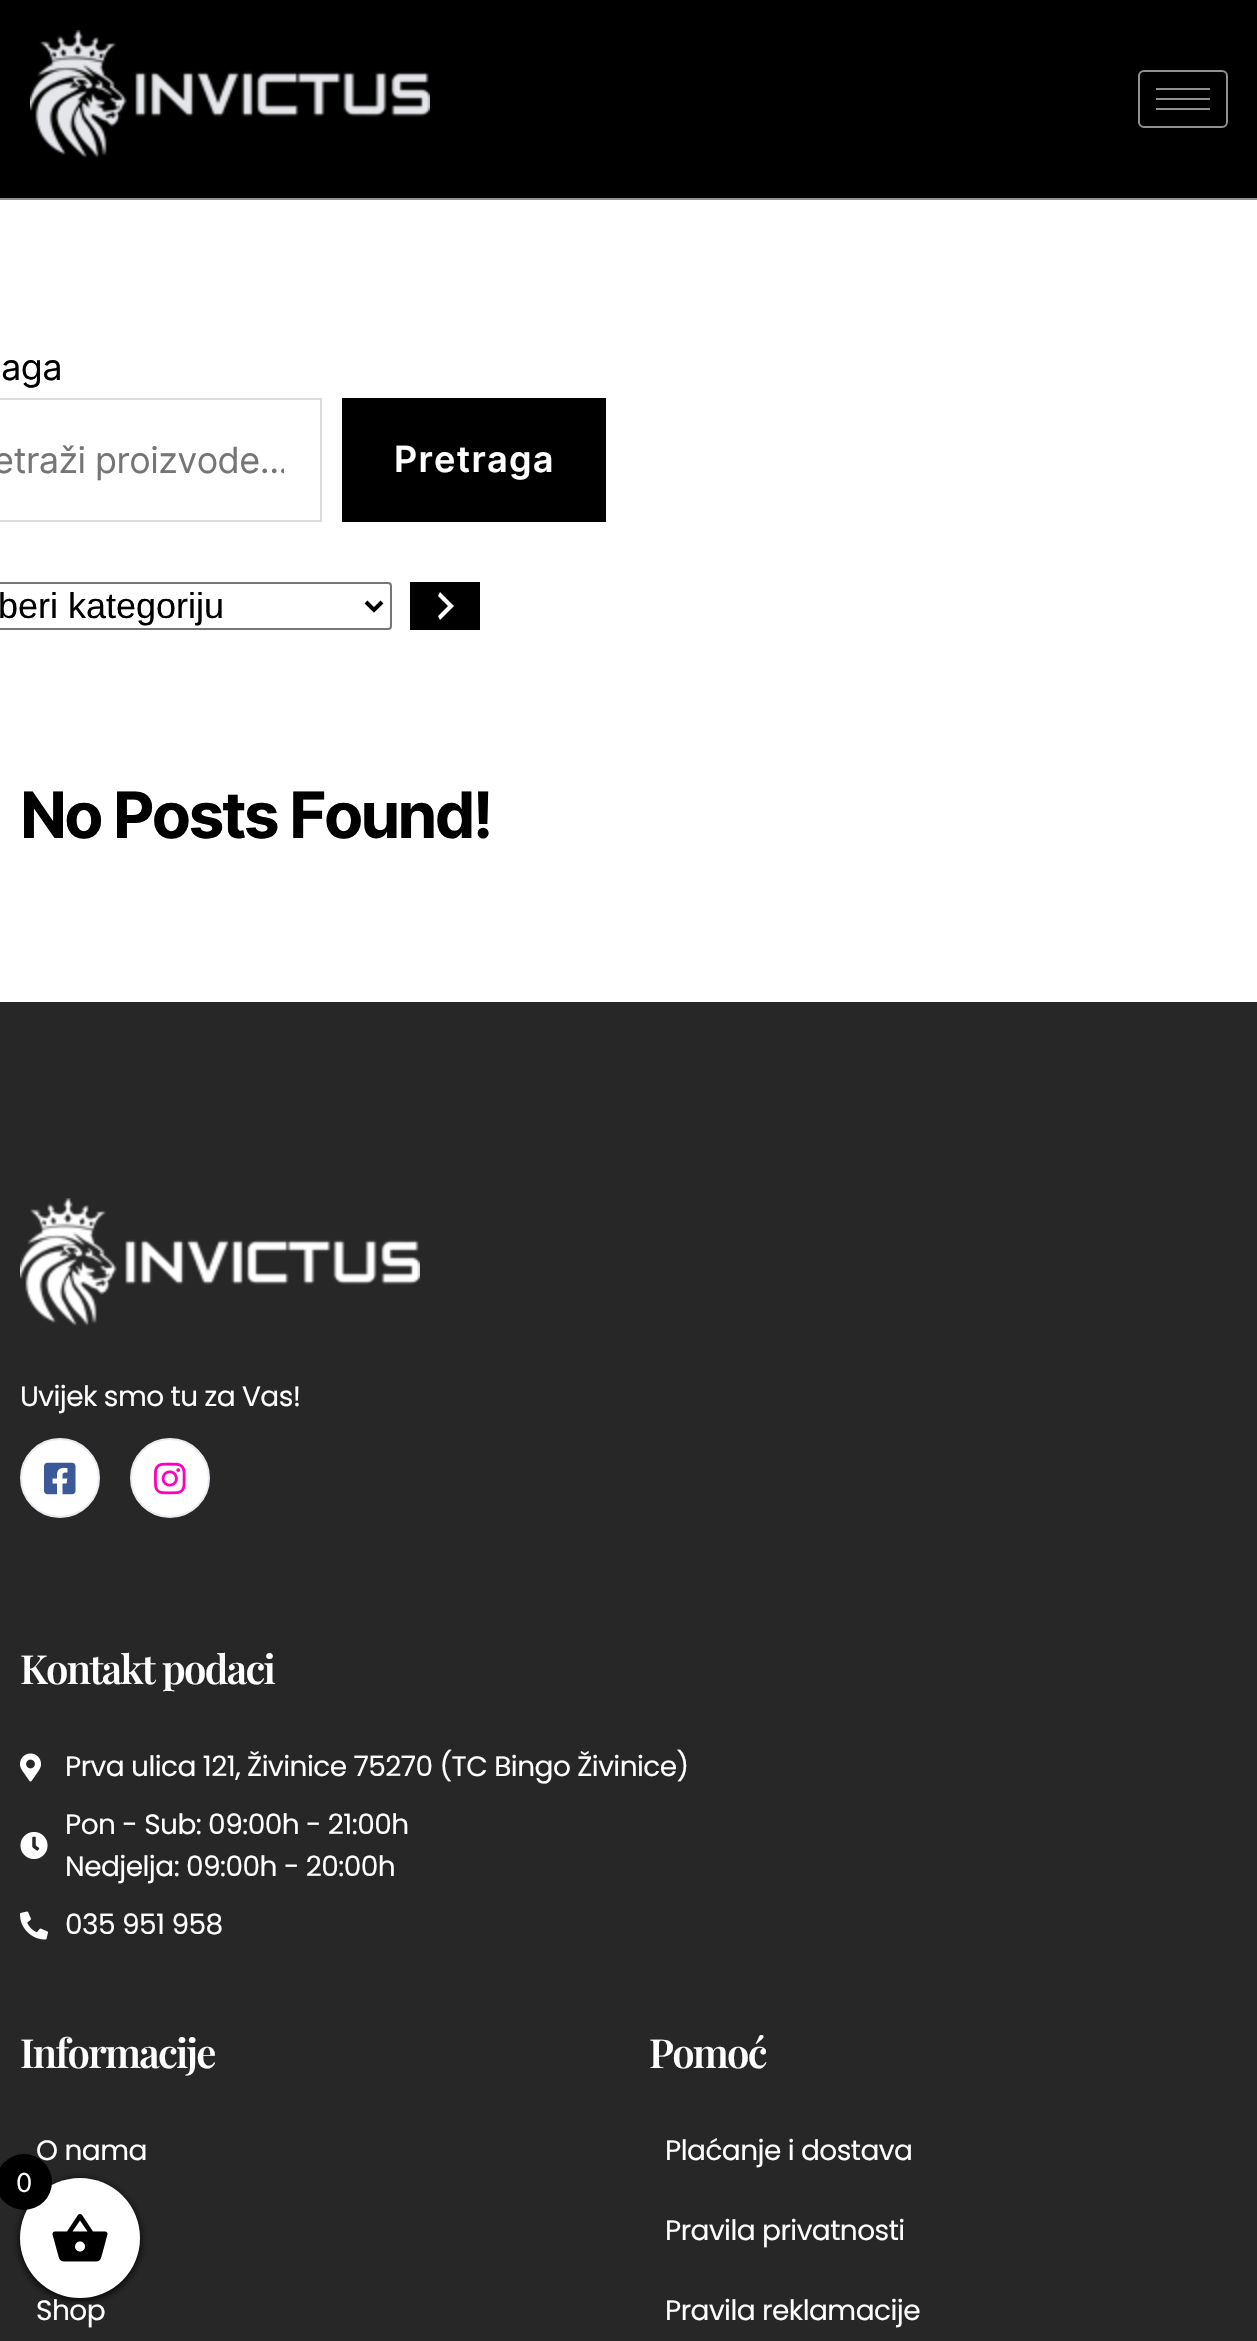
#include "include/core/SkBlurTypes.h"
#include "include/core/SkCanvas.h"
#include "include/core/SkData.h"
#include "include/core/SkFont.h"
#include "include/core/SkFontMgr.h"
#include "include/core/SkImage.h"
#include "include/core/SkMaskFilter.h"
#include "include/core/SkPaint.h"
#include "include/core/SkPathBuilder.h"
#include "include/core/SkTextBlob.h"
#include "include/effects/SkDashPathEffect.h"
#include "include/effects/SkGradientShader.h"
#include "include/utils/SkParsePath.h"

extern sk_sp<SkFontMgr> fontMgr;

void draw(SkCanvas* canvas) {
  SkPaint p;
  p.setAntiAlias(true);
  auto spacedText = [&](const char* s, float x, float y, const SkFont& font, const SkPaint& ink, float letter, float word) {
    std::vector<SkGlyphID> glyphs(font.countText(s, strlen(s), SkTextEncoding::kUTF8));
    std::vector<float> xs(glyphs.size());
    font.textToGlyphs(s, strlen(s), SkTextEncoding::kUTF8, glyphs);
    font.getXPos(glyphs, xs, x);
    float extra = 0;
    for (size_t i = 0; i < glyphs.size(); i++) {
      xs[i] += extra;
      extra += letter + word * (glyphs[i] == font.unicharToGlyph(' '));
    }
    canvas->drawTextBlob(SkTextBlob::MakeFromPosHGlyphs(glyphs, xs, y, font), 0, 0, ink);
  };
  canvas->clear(SK_ColorWHITE);
  p.setColor(SK_ColorBLACK);
  canvas->drawRect(SkRect::MakeLTRB(0, 0, 1257, 198), p);
  p.setColor(SkColorSetRGB(145, 145, 145));
  canvas->drawRect(SkRect::MakeLTRB(0, 198, 1257, 200), p);
  canvas->drawImageRect(SkImages::DeferredFromEncodedData(SkData::MakeFromFileName("images/1.png")), SkRect::MakeLTRB(30, 30, 430, 158), SkSamplingOptions());
  p.setStyle(SkPaint::kStroke_Style);
  p.setStrokeWidth(2);
  canvas->drawRoundRect(SkRect::MakeLTRB(1139, 71, 1227, 127), 5, 5, p);
  p.setStyle(SkPaint::kFill_Style);
  canvas->drawRect(SkRect::MakeLTRB(1156, 88, 1210, 90), p);
  canvas->drawRect(SkRect::MakeLTRB(1156, 98, 1210, 100), p);
  canvas->drawRect(SkRect::MakeLTRB(1156, 108, 1210, 110), p);
  p.setStyle(SkPaint::kStroke_Style);
  p.setColor(SkColorSetRGB(219, 219, 219));
  canvas->drawRect(SkRect::MakeLTRB(-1, 399, 321, 521), p);
  p.setStyle(SkPaint::kFill_Style);
  p.setColor(SK_ColorBLACK);
  canvas->drawRect(SkRect::MakeLTRB(342, 398, 606, 522), p);
  p.setStyle(SkPaint::kStroke_Style);
  p.setColor(SkColorSetRGB(118, 118, 118));
  canvas->drawRoundRect(SkRect::MakeLTRB(-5, 583, 391, 629), 3, 3, p);
  p.setStrokeWidth(4);
  p.setColor(SK_ColorBLACK);
  canvas->drawPath(SkPathBuilder().moveTo(366, 602).lineTo(374, 610).lineTo(382, 602).detach(), p);
  p.setStyle(SkPaint::kFill_Style);
  canvas->drawRect(SkRect::MakeLTRB(410, 582, 480, 630), p);
  p.setColor(SK_ColorWHITE);
  canvas->drawPath(SkPathBuilder().moveTo(438, 616).lineTo(448, 606).lineTo(438, 596).lineTo(440, 592).lineTo(454, 606).lineTo(440, 620).close().detach(), p);
  p.setColor(SkColorSetRGB(39, 39, 39));
  canvas->drawRect(SkRect::MakeLTRB(0, 1002, 1257, 2341), p);
  canvas->drawImageRect(SkImages::DeferredFromEncodedData(SkData::MakeFromFileName("images/2.png")), SkRect::MakeLTRB(20, 1198, 420, 1326), SkSamplingOptions());
  p.setColor(SK_ColorWHITE);
  canvas->drawCircle(60, 1478, 39, p);
  p.setStyle(SkPaint::kStroke_Style);
  p.setStrokeWidth(2);
  p.setColor(SkColorSetRGB(234, 235, 241));
  canvas->drawCircle(60, 1478, 39, p);
  canvas->drawImageRect(SkImages::DeferredFromEncodedData(SkData::MakeFromFileName("images/3.png")), SkRect::MakeLTRB(44, 1462, 76, 1495), SkSamplingOptions());
  p.setStyle(SkPaint::kFill_Style);
  p.setColor(SK_ColorWHITE);
  canvas->drawCircle(170, 1478, 39, p);
  p.setStyle(SkPaint::kStroke_Style);
  p.setColor(SkColorSetRGB(234, 235, 241));
  canvas->drawCircle(170, 1478, 39, p);
  canvas->drawImageRect(SkImages::DeferredFromEncodedData(SkData::MakeFromFileName("images/4.png")), SkRect::MakeLTRB(154, 1462, 186, 1495), SkSamplingOptions());
  canvas->drawImageRect(SkImages::DeferredFromEncodedData(SkData::MakeFromFileName("images/5.png")), SkRect::MakeLTRB(20, 1753, 41, 1782), SkSamplingOptions());
  canvas->drawImageRect(SkImages::DeferredFromEncodedData(SkData::MakeFromFileName("images/6.png")), SkRect::MakeLTRB(20, 1832, 48, 1859), SkSamplingOptions());
  canvas->drawImageRect(SkImages::DeferredFromEncodedData(SkData::MakeFromFileName("images/7.png")), SkRect::MakeLTRB(20, 1911, 48, 1940), SkSamplingOptions());
  p.setStyle(SkPaint::kFill_Style);
  p.setColor(SK_ColorBLACK);
  p.setMaskFilter(SkMaskFilter::MakeBlur(kNormal_SkBlurStyle, 4));
  canvas->drawRoundRect(SkRect::MakeLTRB(20, 2180, 140, 2300), 60, 60, p);
  p.setMaskFilter(nullptr);
  p.setColor(SK_ColorWHITE);
  canvas->drawCircle(80, 2238, 60, p);
  canvas->drawImageRect(SkImages::DeferredFromEncodedData(SkData::MakeFromFileName("images/8.png")), SkRect::MakeLTRB(52, 2214, 108, 2262), SkSamplingOptions());
  SkFont font1(fontMgr->matchFamilyStyle("Inter", SkFontStyle::Normal()), 36);
  font1.setSubpixel(true);
  p.setColor(SK_ColorBLACK);
  spacedText("aga", 1, 380, font1, p, -0.55f, 0);
  canvas->save();
  canvas->clipRect(SkRect::MakeLTRB(0, 440, 284, 482));
  p.setColor(SkColorSetRGB(117, 117, 117));
  spacedText("etraži proizvode...", -7, 473, font1, p, -0.55f, 0);
  canvas->restore();
  SkFont font2(fontMgr->matchFamilyStyle("Inter", SkFontStyle(600, SkFontStyle::kNormal_Width, SkFontStyle::kUpright_Slant)), 36);
  font2.setSubpixel(true);
  p.setColor(SK_ColorWHITE);
  spacedText("Pretraga", 394, 472, font2, p, 1.25f, 0);
  SkFont font3(fontMgr->matchFamilyStyle("Liberation Sans", SkFontStyle::Normal()), 36);
  font3.setSubpixel(true);
  p.setColor(SK_ColorBLACK);
  canvas->drawString("beri kategoriju", -2, 618, font3, p);
  SkFont font4(fontMgr->matchFamilyStyle("Inter", SkFontStyle::Bold()), 64);
  font4.setSubpixel(true);
  spacedText("No Posts Found!", 20, 838, font4, p, -2.7f, 0);
  SkFont font5(fontMgr->matchFamilyStyle("Poppins", SkFontStyle::Normal()), 28);
  font5.setSubpixel(true);
  p.setColor(SK_ColorWHITE);
  spacedText("Uvijek smo tu za Vas!", 20, 1406, font5, p, -0.55f, 0);
  SkFont font6(fontMgr->matchFamilyStyle("Playfair Display", SkFontStyle(600, SkFontStyle::kNormal_Width, SkFontStyle::kUpright_Slant)), 40);
  font6.setSubpixel(true);
  spacedText("Kontakt podaci", 20, 1684, font6, p, -1.7f, 0);
  spacedText("Prva ulica 121, Živinice 75270 (TC Bingo Živinice)", 65, 1776, font5, p, -0.55f, 0);
  spacedText("Pon - Sub: 09:00h - 21:00h", 65, 1834, font5, p, -0.55f, 0);
  spacedText("Nedjelja: 09:00h - 20:00h", 65, 1876, font5, p, -0.55f, 0);
  spacedText("035 951 958", 65, 1934, font5, p, -0.55f, 0);
  spacedText("Informacije", 20, 2068, font6, p, -1.7f, 0);
  spacedText("O nama", 36, 2160, font5, p, -0.55f, 0);
  spacedText("Shop", 36, 2320, font5, p, -0.55f, 0);
  spacedText("Pomoć", 649, 2068, font6, p, -1.7f, 0);
  spacedText("Plaćanje i dostava", 665, 2160, font5, p, -0.55f, 0);
  spacedText("Pravila privatnosti", 665, 2240, font5, p, -0.55f, 0);
  spacedText("Pravila reklamacije", 665, 2320, font5, p, -0.55f, 0);
  p.setColor(SK_ColorBLACK);
  canvas->drawCircle(24, 2182, 28, p);
  SkFont font7(fontMgr->matchFamilyStyle("Inter", SkFontStyle::Normal()), 26);
  font7.setSubpixel(true);
  p.setColor(SK_ColorWHITE);
  spacedText("0", 16, 2192, font7, p, -0.55f, 0);
}
